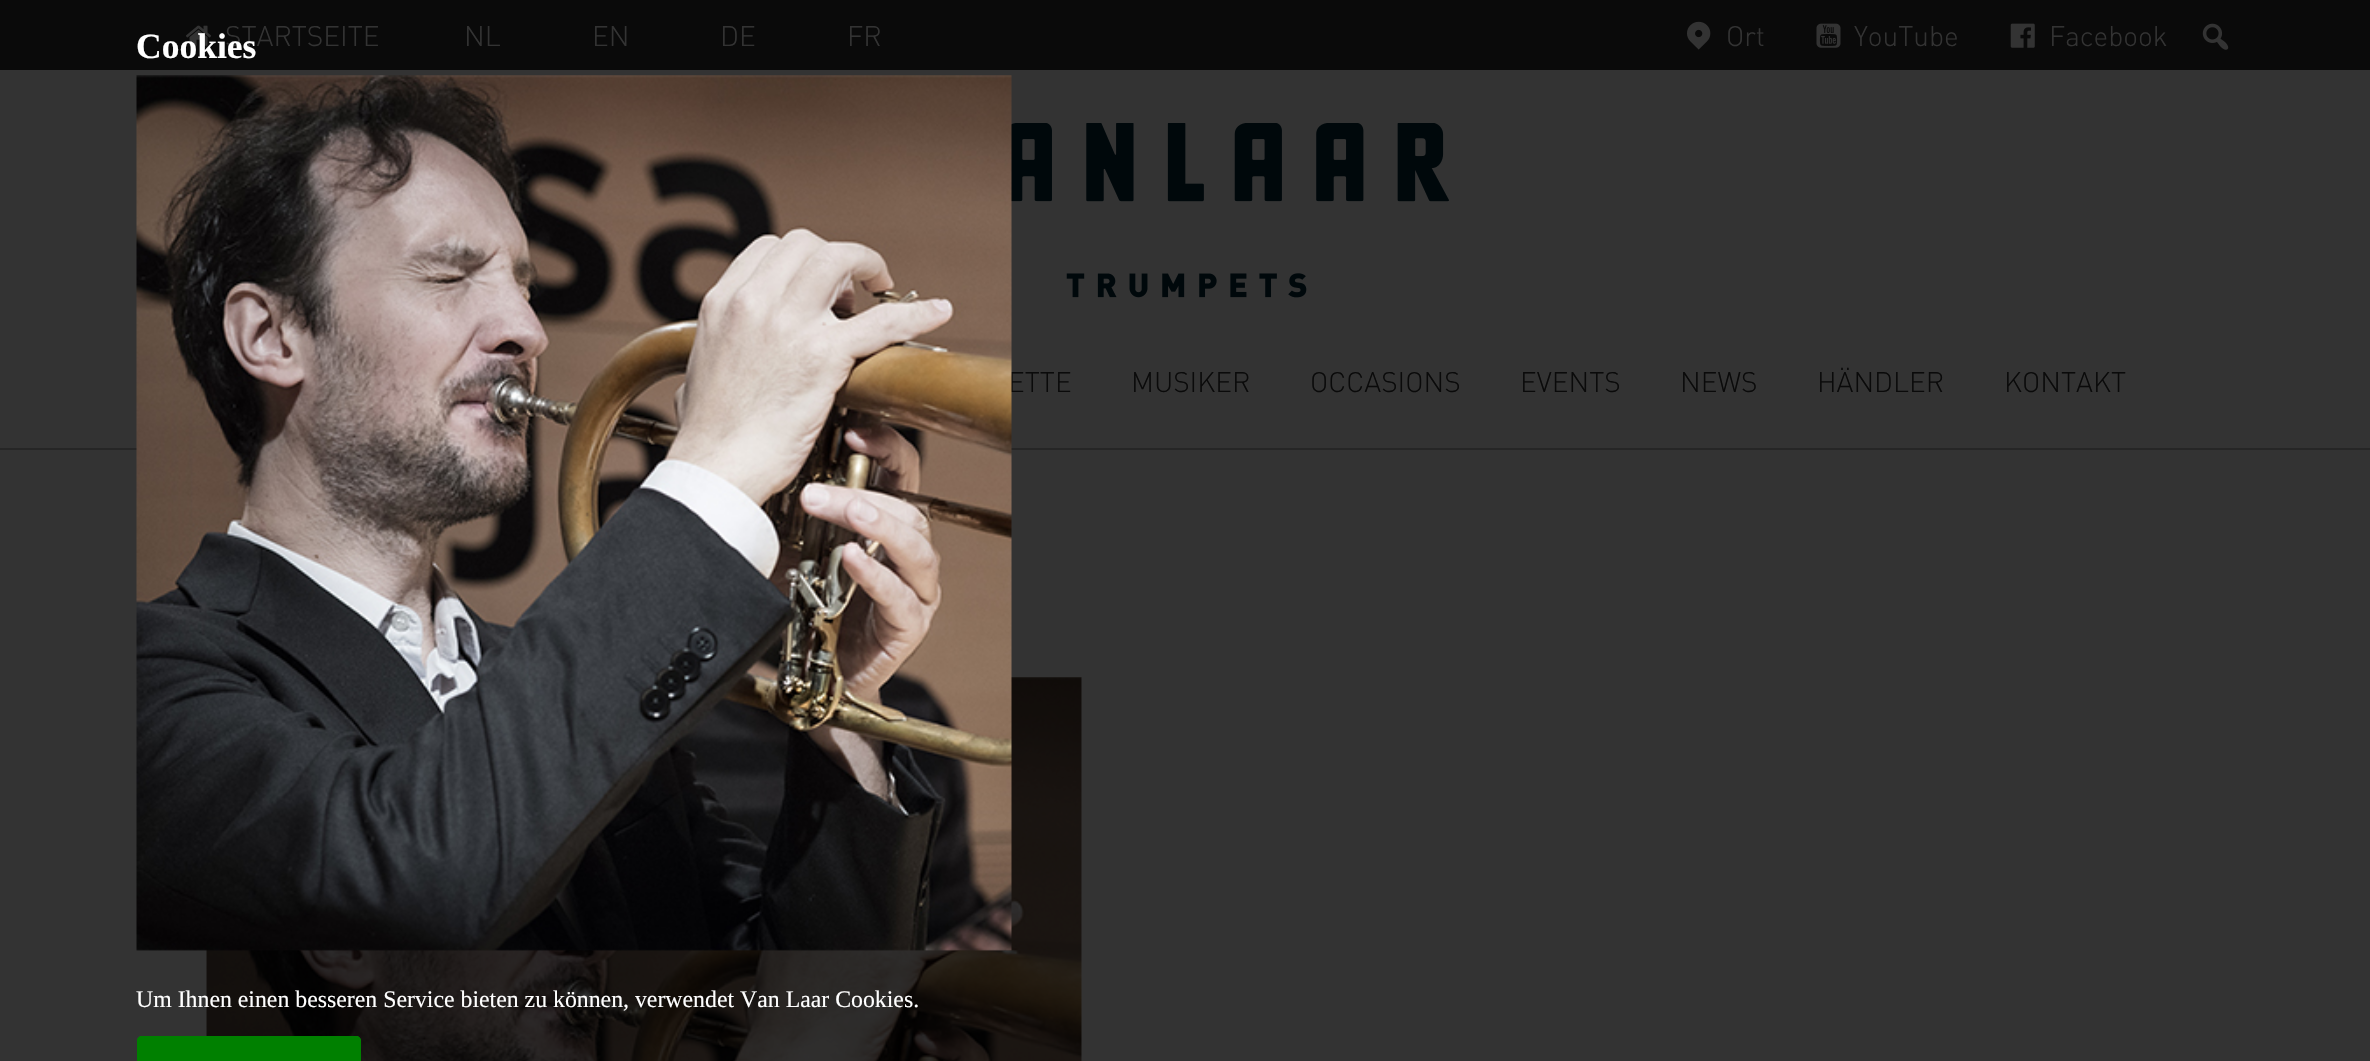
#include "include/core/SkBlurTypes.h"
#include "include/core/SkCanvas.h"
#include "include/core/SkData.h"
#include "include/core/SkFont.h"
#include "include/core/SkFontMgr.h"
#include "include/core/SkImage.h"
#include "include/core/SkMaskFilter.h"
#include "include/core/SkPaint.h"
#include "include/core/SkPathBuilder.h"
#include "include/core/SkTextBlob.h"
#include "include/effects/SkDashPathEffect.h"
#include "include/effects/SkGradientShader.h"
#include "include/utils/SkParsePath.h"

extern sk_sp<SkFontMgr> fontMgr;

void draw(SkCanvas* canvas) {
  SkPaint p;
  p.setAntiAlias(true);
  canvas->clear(SkColorSetRGB(51, 51, 51));
  p.setColor(SkColorSetRGB(10, 10, 10));
  canvas->drawRect(SkRect::MakeLTRB(0, 0, 2370, 70), p);
  canvas->drawImageRect(SkImages::DeferredFromEncodedData(SkData::MakeFromFileName("images/1.png")), SkRect::MakeLTRB(186, 25, 212, 46), SkSamplingOptions());
  canvas->drawImageRect(SkImages::DeferredFromEncodedData(SkData::MakeFromFileName("images/2.png")), SkRect::MakeLTRB(1687, 21, 1711, 50), SkSamplingOptions());
  canvas->drawImageRect(SkImages::DeferredFromEncodedData(SkData::MakeFromFileName("images/3.png")), SkRect::MakeLTRB(1816, 23, 1841, 48), SkSamplingOptions());
  canvas->drawImageRect(SkImages::DeferredFromEncodedData(SkData::MakeFromFileName("images/4.png")), SkRect::MakeLTRB(2010, 23, 2035, 48), SkSamplingOptions());
  canvas->drawImageRect(SkImages::DeferredFromEncodedData(SkData::MakeFromFileName("images/5.png")), SkRect::MakeLTRB(2202, 23, 2229, 50), SkSamplingOptions());
  canvas->drawImageRect(SkImages::DeferredFromEncodedData(SkData::MakeFromFileName("images/6.png")), SkRect::MakeLTRB(1011, 123, 1449, 298), SkSamplingOptions());
  p.setColor(SkColorSetRGB(38, 38, 38));
  canvas->drawRect(SkRect::MakeLTRB(0, 448, 2370, 450), p);
  canvas->drawImageRect(SkImages::DeferredFromEncodedData(SkData::MakeFromFileName("images/7.png")), SkRect::MakeLTRB(206, 677, 1082, 1061), SkSamplingOptions());
  p.setColor(SkColorSetRGB(0, 128, 0));
  canvas->drawPath(SkPathBuilder().moveTo(142, 1036).lineTo(356, 1036).cubicTo(359, 1036, 361, 1038, 361, 1041).lineTo(361, 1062).lineTo(137, 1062).lineTo(137, 1041).cubicTo(137, 1038, 139, 1036, 142, 1036).close().detach(), p);
  p.setStyle(SkPaint::kStroke_Style);
  p.setStrokeWidth(2);
  canvas->drawRoundRect(SkRect::MakeLTRB(138, 1037, 360, 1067), 4, 4, p);
  SkFont font1(fontMgr->matchFamilyStyle("DIN", SkFontStyle(300, SkFontStyle::kNormal_Width, SkFontStyle::kUpright_Slant)), 28);
  font1.setSubpixel(true);
  p.setStyle(SkPaint::kFill_Style);
  p.setColor(SkColorSetRGB(51, 51, 51));
  canvas->drawString("STARTSEITE", 225, 46, font1, p);
  canvas->drawString("NL", 464, 46, font1, p);
  canvas->drawString("EN", 592, 46, font1, p);
  canvas->drawString("DE", 720, 46, font1, p);
  canvas->drawString("FR", 847, 46, font1, p);
  canvas->drawString("Ort", 1726, 46, font1, p);
  canvas->drawString("YouTube", 1854, 46, font1, p);
  canvas->drawString("Facebook", 2049, 46, font1, p);
  p.setColor(SkColorSetRGB(10, 10, 10));
  canvas->drawString("ETTE", 1008, 392, font1, p);
  canvas->drawString("MUSIKER", 1131, 392, font1, p);
  canvas->drawString("OCCASIONS", 1310, 392, font1, p);
  canvas->drawString("EVENTS", 1520, 392, font1, p);
  canvas->drawString("NEWS", 1680, 392, font1, p);
  canvas->drawString("HÄNDLER", 1817, 392, font1, p);
  canvas->drawString("KONTAKT", 2004, 392, font1, p);
  SkFont font2(fontMgr->matchFamilyStyle("Liberation Serif", SkFontStyle::Bold()), 35.5f);
  font2.setSubpixel(true);
  p.setColor(SK_ColorWHITE);
  canvas->drawString("Cookies", 136, 58, font2, p);
  canvas->drawImageRect(SkImages::DeferredFromEncodedData(SkData::MakeFromFileName("images/8.png")), SkRect::MakeLTRB(136, 75, 1012, 951), SkSamplingOptions());
  SkFont font3(fontMgr->matchFamilyStyle("Liberation Serif", SkFontStyle::Normal()), 23.8f);
  font3.setSubpixel(true);
  canvas->drawString("Um Ihnen einen besseren Service bieten zu können, verwendet Van Laar Cookies.", 136, 1007, font3, p);
}
